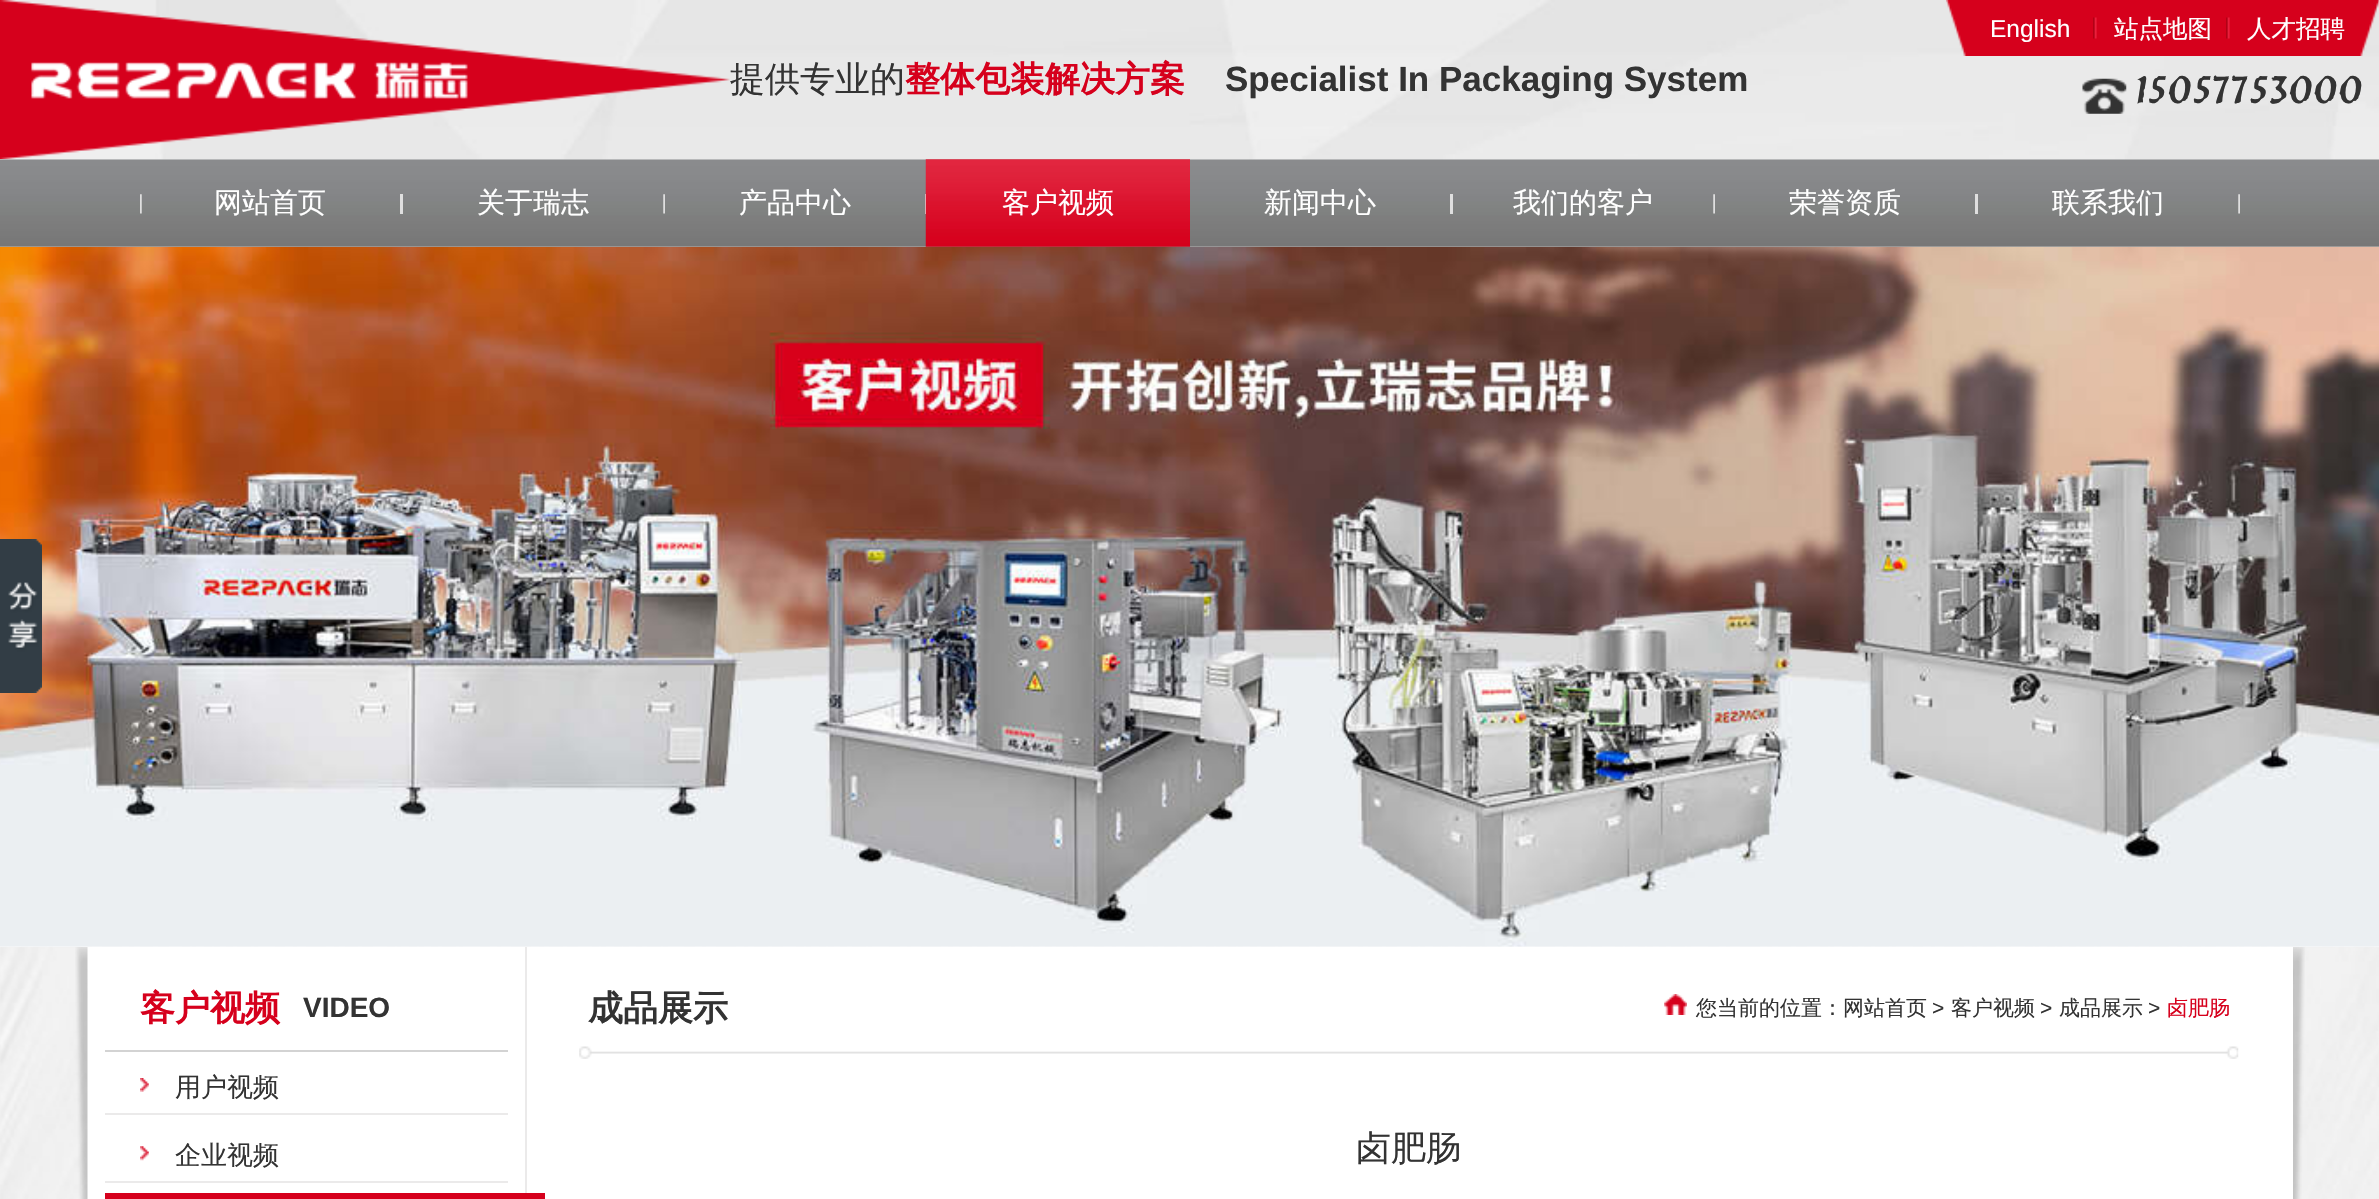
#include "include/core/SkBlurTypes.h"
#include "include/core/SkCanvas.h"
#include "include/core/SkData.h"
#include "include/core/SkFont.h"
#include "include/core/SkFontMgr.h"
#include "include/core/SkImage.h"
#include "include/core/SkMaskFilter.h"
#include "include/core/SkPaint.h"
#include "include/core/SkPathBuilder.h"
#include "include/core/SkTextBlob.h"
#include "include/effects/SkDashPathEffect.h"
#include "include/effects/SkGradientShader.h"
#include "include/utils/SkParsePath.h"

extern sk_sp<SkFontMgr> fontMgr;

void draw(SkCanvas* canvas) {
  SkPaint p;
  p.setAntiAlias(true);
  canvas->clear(SK_ColorWHITE);
  canvas->drawImageRect(SkImages::DeferredFromEncodedData(SkData::MakeFromFileName("images/7.png")), SkRect::MakeLTRB(0, 159, 2379, 247), SkSamplingOptions());
  canvas->drawImageRect(SkImages::DeferredFromEncodedData(SkData::MakeFromFileName("images/2.png")), SkRect::MakeLTRB(0, 0, 2379, 160), SkSamplingOptions());
  p.setColor(SkColorSetRGB(223, 223, 223));
  canvas->drawRect(SkRect::MakeLTRB(925, 194, 926, 214), p);
  canvas->drawImageRect(SkImages::DeferredFromEncodedData(SkData::MakeFromFileName("images/10.png")), SkRect::MakeLTRB(925, 159, 1190, 247), SkSamplingOptions());
  canvas->drawImageRect(SkImages::DeferredFromEncodedData(SkData::MakeFromFileName("images/12.png")), SkRect::MakeLTRB(0, 946, 2379, 1199), SkSamplingOptions());
  canvas->drawImageRect(SkImages::DeferredFromEncodedData(SkData::MakeFromFileName("images/11.png")), SkRect::MakeLTRB(0, 246, 2379, 947), SkSamplingOptions());
  canvas->drawImageRect(SkImages::DeferredFromEncodedData(SkData::MakeFromFileName("images/1.png")), SkRect::MakeLTRB(0, 539, 42, 693), SkSamplingOptions());
  canvas->drawImageRect(SkImages::DeferredFromEncodedData(SkData::MakeFromFileName("images/4.png")), SkRect::MakeLTRB(1946, 0, 2379, 56), SkSamplingOptions());
  canvas->drawImageRect(SkImages::DeferredFromEncodedData(SkData::MakeFromFileName("images/5.png")), SkRect::MakeLTRB(2093, 17, 2097, 39), SkSamplingOptions());
  canvas->drawImageRect(SkImages::DeferredFromEncodedData(SkData::MakeFromFileName("images/5.png")), SkRect::MakeLTRB(2226, 17, 2230, 39), SkSamplingOptions());
  canvas->drawImageRect(SkImages::DeferredFromEncodedData(SkData::MakeFromFileName("images/6.png")), SkRect::MakeLTRB(2082, 78, 2127, 114), SkSamplingOptions());
  canvas->drawImageRect(SkImages::DeferredFromEncodedData(SkData::MakeFromFileName("images/8.png")), SkRect::MakeLTRB(140, 194, 142, 214), SkSamplingOptions());
  canvas->drawRect(SkRect::MakeLTRB(400, 194, 403, 214), p);
  canvas->drawImageRect(SkImages::DeferredFromEncodedData(SkData::MakeFromFileName("images/9.png")), SkRect::MakeLTRB(663, 194, 665, 214), SkSamplingOptions());
  canvas->drawRect(SkRect::MakeLTRB(1450, 194, 1453, 214), p);
  canvas->drawImageRect(SkImages::DeferredFromEncodedData(SkData::MakeFromFileName("images/9.png")), SkRect::MakeLTRB(1713, 194, 1715, 214), SkSamplingOptions());
  canvas->drawRect(SkRect::MakeLTRB(1975, 194, 1978, 214), p);
  canvas->drawImageRect(SkImages::DeferredFromEncodedData(SkData::MakeFromFileName("images/9.png")), SkRect::MakeLTRB(2238, 194, 2240, 214), SkSamplingOptions());
  canvas->drawImageRect(SkImages::DeferredFromEncodedData(SkData::MakeFromFileName("images/13.png")), SkRect::MakeLTRB(75, 947, 2305, 1199), SkSamplingOptions());
  p.setColor(SK_ColorWHITE);
  canvas->drawRect(SkRect::MakeLTRB(2292, 947, 2293, 1199), p);
  p.setColor(SkColorSetRGB(211, 211, 211));
  canvas->drawRect(SkRect::MakeLTRB(105, 1050, 508, 1052), p);
  canvas->drawImageRect(SkImages::DeferredFromEncodedData(SkData::MakeFromFileName("images/14.png")), SkRect::MakeLTRB(140, 1078, 149, 1092), SkSamplingOptions());
  p.setColor(SkColorSetRGB(235, 234, 234));
  canvas->drawRect(SkRect::MakeLTRB(105, 1113, 508, 1115), p);
  canvas->drawImageRect(SkImages::DeferredFromEncodedData(SkData::MakeFromFileName("images/15.png")), SkRect::MakeLTRB(140, 1146, 149, 1161), SkSamplingOptions());
  canvas->drawRect(SkRect::MakeLTRB(105, 1181, 508, 1183), p);
  canvas->drawRect(SkRect::MakeLTRB(525, 947, 527, 1199), p);
  p.setColor(SkColorSetRGB(214, 0, 28));
  canvas->drawRect(SkRect::MakeLTRB(105, 1193, 545, 1199), p);
  canvas->drawImageRect(SkImages::DeferredFromEncodedData(SkData::MakeFromFileName("images/16.png")), SkRect::MakeLTRB(579, 1046, 2239, 1059), SkSamplingOptions());
  canvas->drawImageRect(SkImages::DeferredFromEncodedData(SkData::MakeFromFileName("images/17.png")), SkRect::MakeLTRB(1664, 994, 1687, 1015), SkSamplingOptions());
  SkFont font1(fontMgr->matchFamilyStyle("WenQuanYi Zen Hei", SkFontStyle(500, SkFontStyle::kNormal_Width, SkFontStyle::kUpright_Slant)), 35);
  font1.setSubpixel(true);
  p.setColor(SkColorSetRGB(51, 51, 51));
  canvas->drawString("提供专业的", 730, 91, font1, p);
  canvas->drawImageRect(SkImages::DeferredFromEncodedData(SkData::MakeFromFileName("images/3.png")), SkRect::MakeLTRB(0, 0, 730, 160), SkSamplingOptions());
  SkFont font2(fontMgr->matchFamilyStyle("WenQuanYi Zen Hei", SkFontStyle::Bold()), 35);
  font2.setSubpixel(true);
  p.setColor(SkColorSetRGB(214, 0, 28));
  canvas->drawString("整体包装解决方案", 905, 91, font2, p);
  SkFont font3(fontMgr->matchFamilyStyle("Liberation Sans", SkFontStyle::Bold()), 35);
  font3.setSubpixel(true);
  p.setColor(SkColorSetRGB(51, 51, 51));
  canvas->drawString("Specialist In Packaging System", 1225, 91, font3, p);
  SkFont font4(fontMgr->matchFamilyStyle("Liberation Sans", SkFontStyle::Normal()), 24.5f);
  font4.setSubpixel(true);
  p.setColor(SK_ColorWHITE);
  canvas->drawString("English", 1990, 37, font4, p);
  SkFont font5(fontMgr->matchFamilyStyle("WenQuanYi Zen Hei", SkFontStyle(500, SkFontStyle::kNormal_Width, SkFontStyle::kUpright_Slant)), 24.5f);
  font5.setSubpixel(true);
  canvas->drawString("站点地图", 2114, 37, font5, p);
  canvas->drawString("人才招聘", 2247, 37, font5, p);
  SkFont font6(fontMgr->matchFamilyStyle("Balthazar", SkFontStyle(100, SkFontStyle::kNormal_Width, SkFontStyle::kUpright_Slant)), 43.75f);
  font6.setSubpixel(true);
  p.setColor(SkColorSetRGB(51, 51, 51));
  canvas->drawString("15057753000", 2136, 103, font6, p);
  SkFont font7(fontMgr->matchFamilyStyle("WenQuanYi Zen Hei", SkFontStyle(500, SkFontStyle::kNormal_Width, SkFontStyle::kUpright_Slant)), 28);
  font7.setSubpixel(true);
  p.setColor(SK_ColorWHITE);
  canvas->drawString("网站首页", 214, 212, font7, p);
  canvas->drawString("关于瑞志", 477, 212, font7, p);
  canvas->drawString("产品中心", 739, 212, font7, p);
  canvas->drawString("客户视频", 1002, 212, font7, p);
  canvas->drawString("新闻中心", 1264, 212, font7, p);
  canvas->drawString("我们的客户", 1513, 212, font7, p);
  canvas->drawString("荣誉资质", 1789, 212, font7, p);
  canvas->drawString("联系我们", 2052, 212, font7, p);
  p.setColor(SkColorSetRGB(214, 0, 28));
  canvas->drawString("客户视频", 140, 1020, font2, p);
  SkFont font8(fontMgr->matchFamilyStyle("Liberation Sans", SkFontStyle::Bold()), 28);
  font8.setSubpixel(true);
  p.setColor(SkColorSetRGB(51, 51, 51));
  canvas->drawString("VIDEO", 303, 1017, font8, p);
  SkFont font9(fontMgr->matchFamilyStyle("WenQuanYi Zen Hei", SkFontStyle(500, SkFontStyle::kNormal_Width, SkFontStyle::kUpright_Slant)), 26);
  font9.setSubpixel(true);
  canvas->drawString("用户视频", 175, 1096, font9, p);
  canvas->drawString("企业视频", 175, 1164, font9, p);
  canvas->drawString("成品展示", 588, 1020, font2, p);
  SkFont font10(fontMgr->matchFamilyStyle("WenQuanYi Zen Hei", SkFontStyle(500, SkFontStyle::kNormal_Width, SkFontStyle::kUpright_Slant)), 21);
  font10.setSubpixel(true);
  canvas->drawString("您当前的位置：网站首页", 1696, 1015, font10, p);
  SkFont font11(fontMgr->matchFamilyStyle("Liberation Sans", SkFontStyle::Normal()), 21);
  font11.setSubpixel(true);
  canvas->drawString(">", 1932, 1015, font11, p);
  canvas->drawString("客户视频", 1951, 1015, font10, p);
  canvas->drawString(">", 2040, 1015, font11, p);
  canvas->drawString("成品展示", 2059, 1015, font10, p);
  canvas->drawString(">", 2148, 1015, font11, p);
  p.setColor(SkColorSetRGB(214, 0, 28));
  canvas->drawString("卤肥肠", 2167, 1015, font10, p);
  p.setColor(SkColorSetRGB(51, 51, 51));
  canvas->drawString("卤肥肠", 1356, 1160, font1, p);
}
